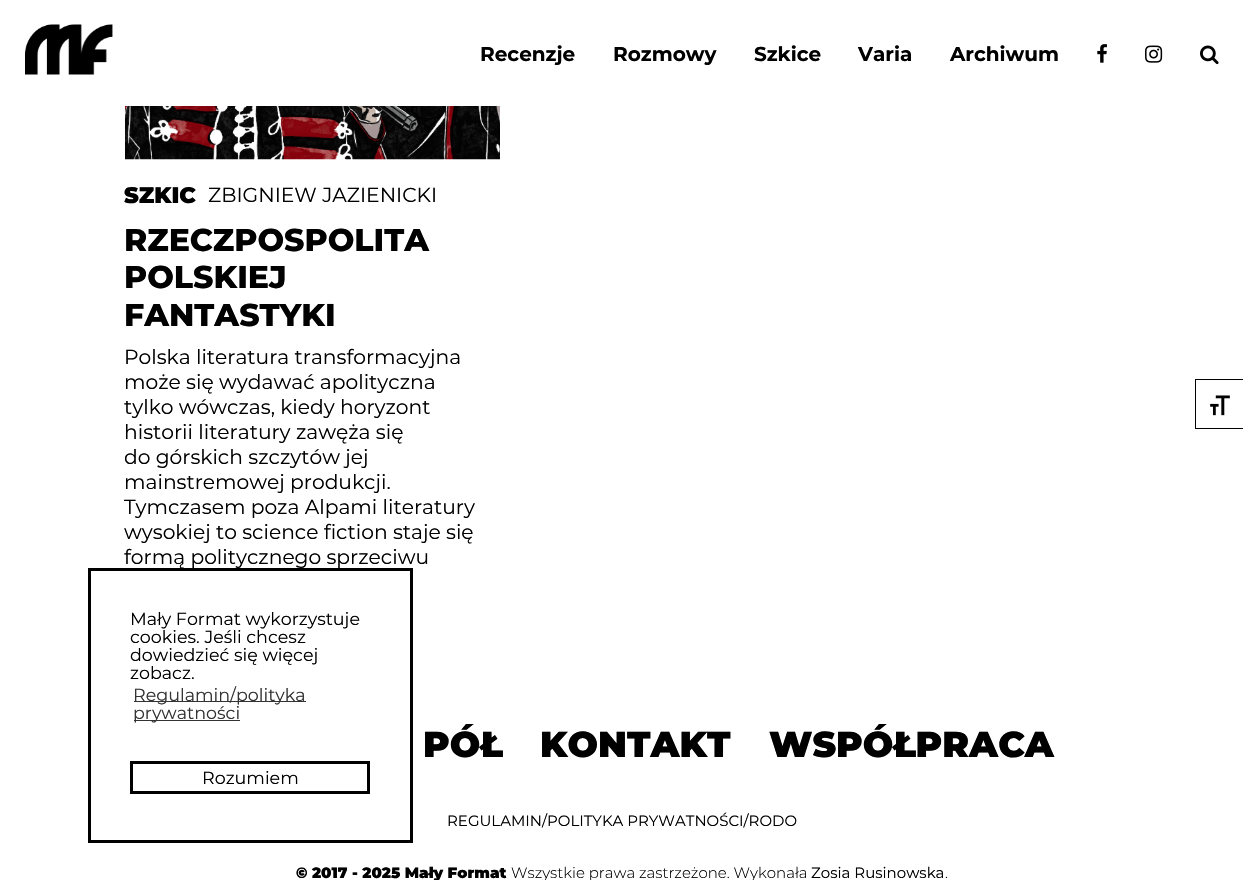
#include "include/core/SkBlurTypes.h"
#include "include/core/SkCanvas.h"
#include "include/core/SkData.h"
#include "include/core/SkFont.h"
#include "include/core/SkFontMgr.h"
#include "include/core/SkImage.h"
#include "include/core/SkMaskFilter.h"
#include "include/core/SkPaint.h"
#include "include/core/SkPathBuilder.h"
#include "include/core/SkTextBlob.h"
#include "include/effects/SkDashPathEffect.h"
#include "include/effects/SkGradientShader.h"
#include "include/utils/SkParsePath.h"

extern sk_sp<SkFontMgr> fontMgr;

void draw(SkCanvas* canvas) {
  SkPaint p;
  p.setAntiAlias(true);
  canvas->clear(SK_ColorWHITE);
  canvas->drawImageRect(SkImages::DeferredFromEncodedData(SkData::MakeFromFileName("images/1.png")), SkRect::MakeLTRB(25, 24, 113, 75), SkSamplingOptions());
  canvas->drawImageRect(SkImages::DeferredFromEncodedData(SkData::MakeFromFileName("images/2.png")), SkRect::MakeLTRB(1097, 44, 1107, 63), SkSamplingOptions());
  canvas->drawImageRect(SkImages::DeferredFromEncodedData(SkData::MakeFromFileName("images/3.png")), SkRect::MakeLTRB(1145, 45, 1163, 63), SkSamplingOptions());
  canvas->drawImageRect(SkImages::DeferredFromEncodedData(SkData::MakeFromFileName("images/4.png")), SkRect::MakeLTRB(1200, 45, 1219, 65), SkSamplingOptions());
  canvas->drawImageRect(SkImages::DeferredFromEncodedData(SkData::MakeFromFileName("images/5.png")), SkRect::MakeLTRB(125, 106, 500, 160), SkSamplingOptions());
  p.setColor(SK_ColorBLACK);
  canvas->drawRect(SkRect::MakeLTRB(1195, 379, 1243, 380), p);
  canvas->drawRect(SkRect::MakeLTRB(1195, 428, 1243, 429), p);
  canvas->drawRect(SkRect::MakeLTRB(1195, 379, 1196, 429), p);
  canvas->drawImageRect(SkImages::DeferredFromEncodedData(SkData::MakeFromFileName("images/6.png")), SkRect::MakeLTRB(1210, 395, 1230, 416), SkSamplingOptions());
  p.setStyle(SkPaint::kStroke_Style);
  p.setStrokeWidth(3);
  canvas->drawRect(SkRect::MakeLTRB(89.5f, 569.5f, 411.5f, 841.5f), p);
  p.setStyle(SkPaint::kFill_Style);
  p.setColor(SkColorSetRGB(51, 51, 51));
  canvas->drawRect(SkRect::MakeLTRB(134, 701, 306, 702), p);
  canvas->drawRect(SkRect::MakeLTRB(134, 720, 240, 721), p);
  p.setStyle(SkPaint::kStroke_Style);
  p.setColor(SK_ColorBLACK);
  canvas->drawRect(SkRect::MakeLTRB(131.5f, 762.5f, 368.5f, 792.5f), p);
  SkFont font1(fontMgr->matchFamilyStyle("Montserrat", SkFontStyle::Bold()), 20);
  font1.setSubpixel(true);
  p.setStyle(SkPaint::kFill_Style);
  canvas->drawString("Recenzje", 480, 61, font1, p);
  canvas->drawString("Rozmowy", 613, 61, font1, p);
  canvas->drawString("Szkice", 754, 61, font1, p);
  canvas->drawString("Varia", 858, 61, font1, p);
  canvas->drawString("Archiwum", 950, 61, font1, p);
  SkFont font2(fontMgr->matchFamilyStyle("Montserrat", SkFontStyle(900, SkFontStyle::kNormal_Width, SkFontStyle::kUpright_Slant)), 22.5f);
  font2.setSubpixel(true);
  canvas->drawString("SZKIC", 124, 203, font2, p);
  SkFont font3(fontMgr->matchFamilyStyle("Montserrat", SkFontStyle::Normal()), 20.25f);
  font3.setSubpixel(true);
  canvas->drawString("ZBIGNIEW JAZIENICKI", 208, 202, font3, p);
  SkFont font4(fontMgr->matchFamilyStyle("Montserrat", SkFontStyle(800, SkFontStyle::kNormal_Width, SkFontStyle::kUpright_Slant)), 31.5f);
  font4.setSubpixel(true);
  canvas->drawString("RZECZPOSPOLITA", 124, 251, font4, p);
  canvas->drawString("POLSKIEJ", 124, 288, font4, p);
  canvas->drawString("FANTASTYKI", 124, 326, font4, p);
  canvas->drawString("Polska literatura transformacyjna", 124, 364, font3, p);
  canvas->drawString("może się wydawać apolityczna", 124, 389, font3, p);
  canvas->drawString("tylko wówczas, kiedy horyzont", 124, 414, font3, p);
  canvas->drawString("historii literatury zawęża się", 124, 439, font3, p);
  canvas->drawString("do górskich szczytów jej", 124, 464, font3, p);
  canvas->drawString("mainstremowej produkcji.", 124, 489, font3, p);
  canvas->drawString("Tymczasem poza Alpami literatury", 124, 514, font3, p);
  canvas->drawString("wysokiej to science fiction staje się", 124, 539, font3, p);
  canvas->drawString("formą politycznego sprzeciwu", 124, 564, font3, p);
  SkFont font5(fontMgr->matchFamilyStyle("Montserrat", SkFontStyle::Normal()), 17.5f);
  font5.setSubpixel(true);
  canvas->drawString("Mały Format wykorzystuje", 130, 625, font5, p);
  canvas->drawString("cookies. Jeśli chcesz", 130, 643, font5, p);
  canvas->drawString("dowiedzieć się więcej", 130, 661, font5, p);
  canvas->drawString("zobacz.", 130, 679, font5, p);
  p.setColor(SkColorSetRGB(51, 51, 51));
  canvas->drawString("Regulamin/polityka", 133, 701, font5, p);
  canvas->drawString("prywatności", 133, 719, font5, p);
  p.setColor(SK_ColorBLACK);
  canvas->drawString("Rozumiem", 202, 784, font5, p);
  SkFont font6(fontMgr->matchFamilyStyle("Montserrat", SkFontStyle(900, SkFontStyle::kNormal_Width, SkFontStyle::kUpright_Slant)), 36);
  font6.setSubpixel(true);
  canvas->drawString("PÓŁ", 423, 757, font6, p);
  canvas->drawString("KONTAKT", 540, 757, font6, p);
  canvas->drawString("WSPÓŁPRACA", 769, 757, font6, p);
  SkFont font7(fontMgr->matchFamilyStyle("Montserrat", SkFontStyle::Normal()), 15);
  font7.setSubpixel(true);
  canvas->drawString("REGULAMIN/POLITYKA PRYWATNOŚCI/RODO", 447, 826, font7, p);
  SkFont font8(fontMgr->matchFamilyStyle("Montserrat", SkFontStyle(900, SkFontStyle::kNormal_Width, SkFontStyle::kUpright_Slant)), 15);
  font8.setSubpixel(true);
  canvas->drawString("© 2017 - 2025 Mały Format", 296, 878, font8, p);
  SkFont font9(fontMgr->matchFamilyStyle("Montserrat", SkFontStyle(300, SkFontStyle::kNormal_Width, SkFontStyle::kUpright_Slant)), 15);
  font9.setSubpixel(true);
  canvas->drawString("Wszystkie prawa zastrzeżone. Wykonała", 511, 878, font9, p);
  canvas->drawString("Zosia Rusinowska", 811, 878, font7, p);
  canvas->drawString(".", 945, 878, font9, p);
}
